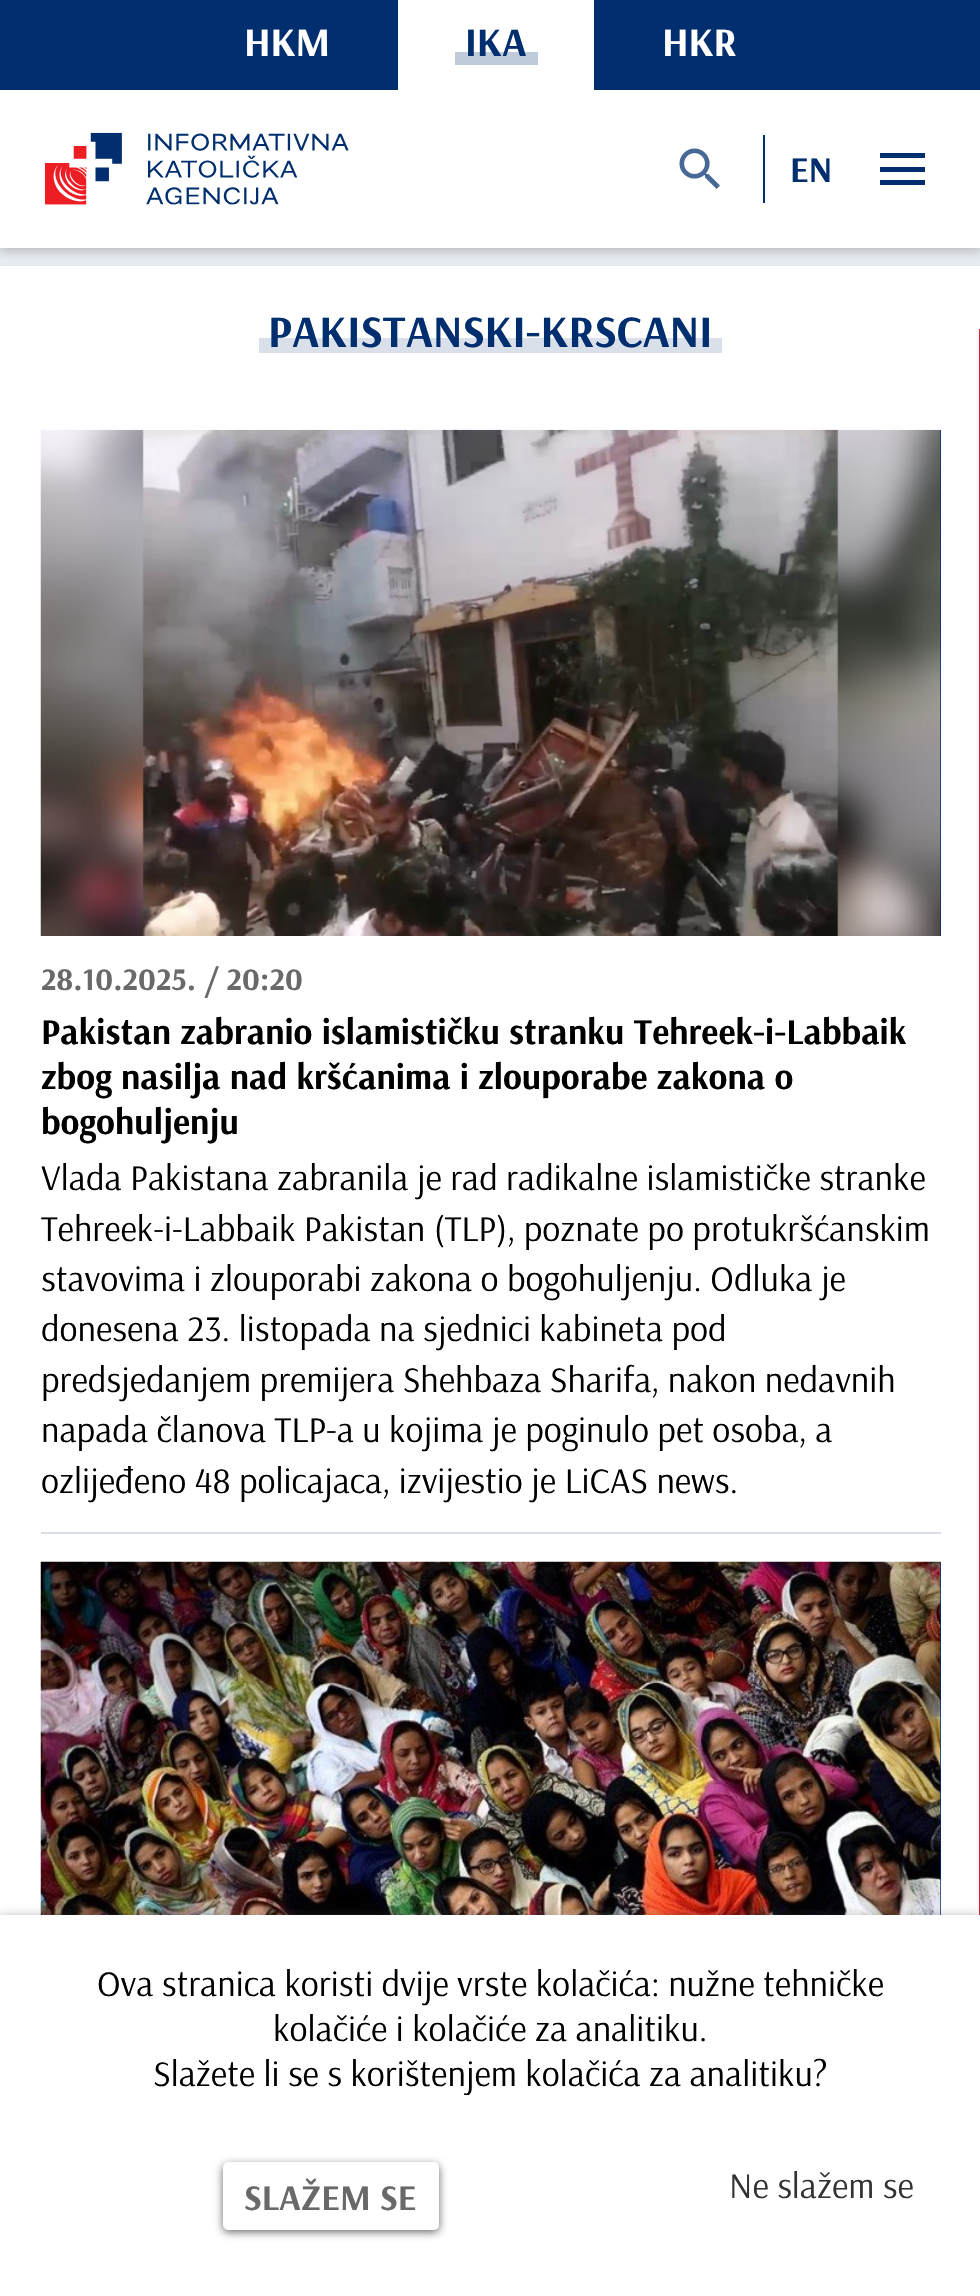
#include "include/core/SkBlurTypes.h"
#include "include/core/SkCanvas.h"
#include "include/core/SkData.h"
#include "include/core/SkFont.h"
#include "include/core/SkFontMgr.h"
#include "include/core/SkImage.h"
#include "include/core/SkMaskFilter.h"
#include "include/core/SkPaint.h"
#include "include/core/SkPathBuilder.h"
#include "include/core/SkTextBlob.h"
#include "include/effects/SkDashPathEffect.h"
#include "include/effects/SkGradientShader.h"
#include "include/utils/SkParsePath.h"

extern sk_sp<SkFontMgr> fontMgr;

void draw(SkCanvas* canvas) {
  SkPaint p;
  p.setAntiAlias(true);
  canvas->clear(SkColorSetRGB(230, 235, 241));
  p.setColor(SkColorSetARGB(128, 148, 148, 148));
  p.setMaskFilter(SkMaskFilter::MakeBlur(kNormal_SkBlurStyle, 4.5f));
  canvas->drawRect(SkRect::MakeLTRB(0, 95, 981, 252), p);
  p.setMaskFilter(nullptr);
  p.setColor(SkColorSetRGB(0, 46, 110));
  canvas->drawRect(SkRect::MakeLTRB(0, 0, 980, 90), p);
  p.setColor(SK_ColorWHITE);
  canvas->drawRect(SkRect::MakeLTRB(398, 0, 594, 90), p);
  p.setColor(SkColorSetRGB(191, 203, 219));
  canvas->drawRect(SkRect::MakeLTRB(455, 52, 538, 65), p);
  p.setColor(SK_ColorWHITE);
  canvas->drawRect(SkRect::MakeLTRB(0, 90, 980, 248), p);
  canvas->drawImageRect(SkImages::DeferredFromEncodedData(SkData::MakeFromFileName("images/1.png")), SkRect::MakeLTRB(45, 132, 349, 205), SkSamplingOptions());
  canvas->drawImageRect(SkImages::DeferredFromEncodedData(SkData::MakeFromFileName("images/2.png")), SkRect::MakeLTRB(679, 148, 720, 189), SkSamplingOptions());
  p.setColor(SkColorSetRGB(0, 46, 110));
  canvas->drawRect(SkRect::MakeLTRB(763, 135, 765, 203), p);
  canvas->drawRect(SkRect::MakeLTRB(880, 153, 925, 158), p);
  canvas->drawRect(SkRect::MakeLTRB(880, 167, 925, 172), p);
  canvas->drawRect(SkRect::MakeLTRB(880, 180, 925, 185), p);
  p.setColor(SK_ColorWHITE);
  canvas->drawRect(SkRect::MakeLTRB(0, 266, 980, 1915), p);
  p.setColor(SkColorSetRGB(216, 35, 42));
  canvas->drawRect(SkRect::MakeLTRB(979, 329, 980, 1915), p);
  p.setColor(SkColorSetRGB(0, 46, 110));
  canvas->drawRect(SkRect::MakeLTRB(940, 430, 941, 936), p);
  canvas->drawImageRect(SkImages::DeferredFromEncodedData(SkData::MakeFromFileName("images/3.png")), SkRect::MakeLTRB(40, 429, 941, 936), SkSamplingOptions());
  p.setColor(SkColorSetRGB(217, 224, 233));
  canvas->drawRect(SkRect::MakeLTRB(41, 1532, 941, 1534), p);
  p.setColor(SkColorSetRGB(0, 46, 110));
  canvas->drawRect(SkRect::MakeLTRB(940, 1562, 941, 1915), p);
  canvas->drawImageRect(SkImages::DeferredFromEncodedData(SkData::MakeFromFileName("images/4.png")), SkRect::MakeLTRB(40, 1561, 941, 1915), SkSamplingOptions());
  p.setColor(SkColorSetARGB(128, 78, 78, 78));
  p.setMaskFilter(SkMaskFilter::MakeBlur(kNormal_SkBlurStyle, 5.5f));
  canvas->drawRect(SkRect::MakeLTRB(0, 1917, 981, 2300), p);
  p.setMaskFilter(nullptr);
  p.setColor(SK_ColorWHITE);
  canvas->drawRect(SkRect::MakeLTRB(0, 1915, 980, 2095), p);
  SkFont font1(fontMgr->matchFamilyStyle("Arsenal", SkFontStyle::Bold()), 40.5f);
  font1.setSubpixel(true);
  canvas->drawString("HKM", 244, 56, font1, p);
  p.setColor(SkColorSetRGB(0, 46, 110));
  canvas->drawString("IKA", 465, 56, font1, p);
  p.setColor(SK_ColorWHITE);
  canvas->drawString("HKR", 662, 56, font1, p);
  SkFont font2(fontMgr->matchFamilyStyle("Arsenal", SkFontStyle::Bold()), 36);
  font2.setSubpixel(true);
  p.setColor(SkColorSetRGB(0, 46, 110));
  canvas->drawString("EN", 790, 182, font2, p);
  SkFont font3(fontMgr->matchFamilyStyle("Arsenal", SkFontStyle::Bold()), 45);
  font3.setSubpixel(true);
  canvas->drawString("PAKISTANSKI-KRSCANI", 268, 347, font3, p);
  p.setColor(SkColorSetARGB(38, 0, 46, 110));
  canvas->drawRect(SkRect::MakeLTRB(259, 338, 722, 353), p);
  SkFont font4(fontMgr->matchFamilyStyle("Arsenal", SkFontStyle::Bold()), 31.5f);
  font4.setSubpixel(true);
  p.setColor(SkColorSetRGB(105, 105, 105));
  canvas->drawString("28.10.2025. / 20:20", 41, 990, font4, p);
  p.setColor(SK_ColorBLACK);
  canvas->drawString("Pakistan zabranio islamističku stranku Tehreek-i-Labbaik", 41, 1044, font2, p);
  canvas->drawString("zbog nasilja nad kršćanima i zlouporabe zakona o", 41, 1089, font2, p);
  canvas->drawString("bogohuljenju", 41, 1134, font2, p);
  SkFont font5(fontMgr->matchFamilyStyle("Arsenal", SkFontStyle::Normal()), 36);
  font5.setSubpixel(true);
  canvas->drawString("Vlada Pakistana zabranila je rad radikalne islamističke stranke", 41, 1190, font5, p);
  canvas->drawString("Tehreek-i-Labbaik Pakistan (TLP), poznate po protukršćanskim", 41, 1241, font5, p);
  canvas->drawString("stavovima i zlouporabi zakona o bogohuljenju. Odluka je", 41, 1291, font5, p);
  canvas->drawString("donesena 23. listopada na sjednici kabineta pod", 41, 1341, font5, p);
  canvas->drawString("predsjedanjem premijera Shehbaza Sharifa, nakon nedavnih", 41, 1392, font5, p);
  canvas->drawString("napada članova TLP-a u kojima je poginulo pet osoba, a", 41, 1442, font5, p);
  canvas->drawString("ozlijeđeno 48 policajaca, izvijestio je LiCAS news.", 41, 1493, font5, p);
  canvas->drawString("Ova stranica koristi dvije vrste kolačića: nužne tehničke", 97, 1996, font5, p);
  canvas->drawString("kolačiće i kolačiće za analitiku.", 273, 2041, font5, p);
  canvas->drawString("Slažete li se s korištenjem kolačića za analitiku?", 153, 2086, font5, p);
  p.setColor(SK_ColorWHITE);
  canvas->drawRect(SkRect::MakeLTRB(0, 2095, 980, 2296), p);
  p.setColor(SkColorSetRGB(100, 100, 100));
  p.setMaskFilter(SkMaskFilter::MakeBlur(kNormal_SkBlurStyle, 4.5f));
  canvas->drawRoundRect(SkRect::MakeLTRB(223, 2165, 439, 2232), 5, 5, p);
  p.setMaskFilter(nullptr);
  p.setColor(SK_ColorWHITE);
  canvas->drawRoundRect(SkRect::MakeLTRB(223, 2162, 439, 2230), 5, 5, p);
  p.setColor(SkColorSetRGB(105, 105, 105));
  canvas->drawString("SLAŽEM SE", 244, 2210, font2, p);
  p.setColor(SkColorSetRGB(51, 51, 51));
  canvas->drawString("Ne slažem se", 729, 2198, font5, p);
}
